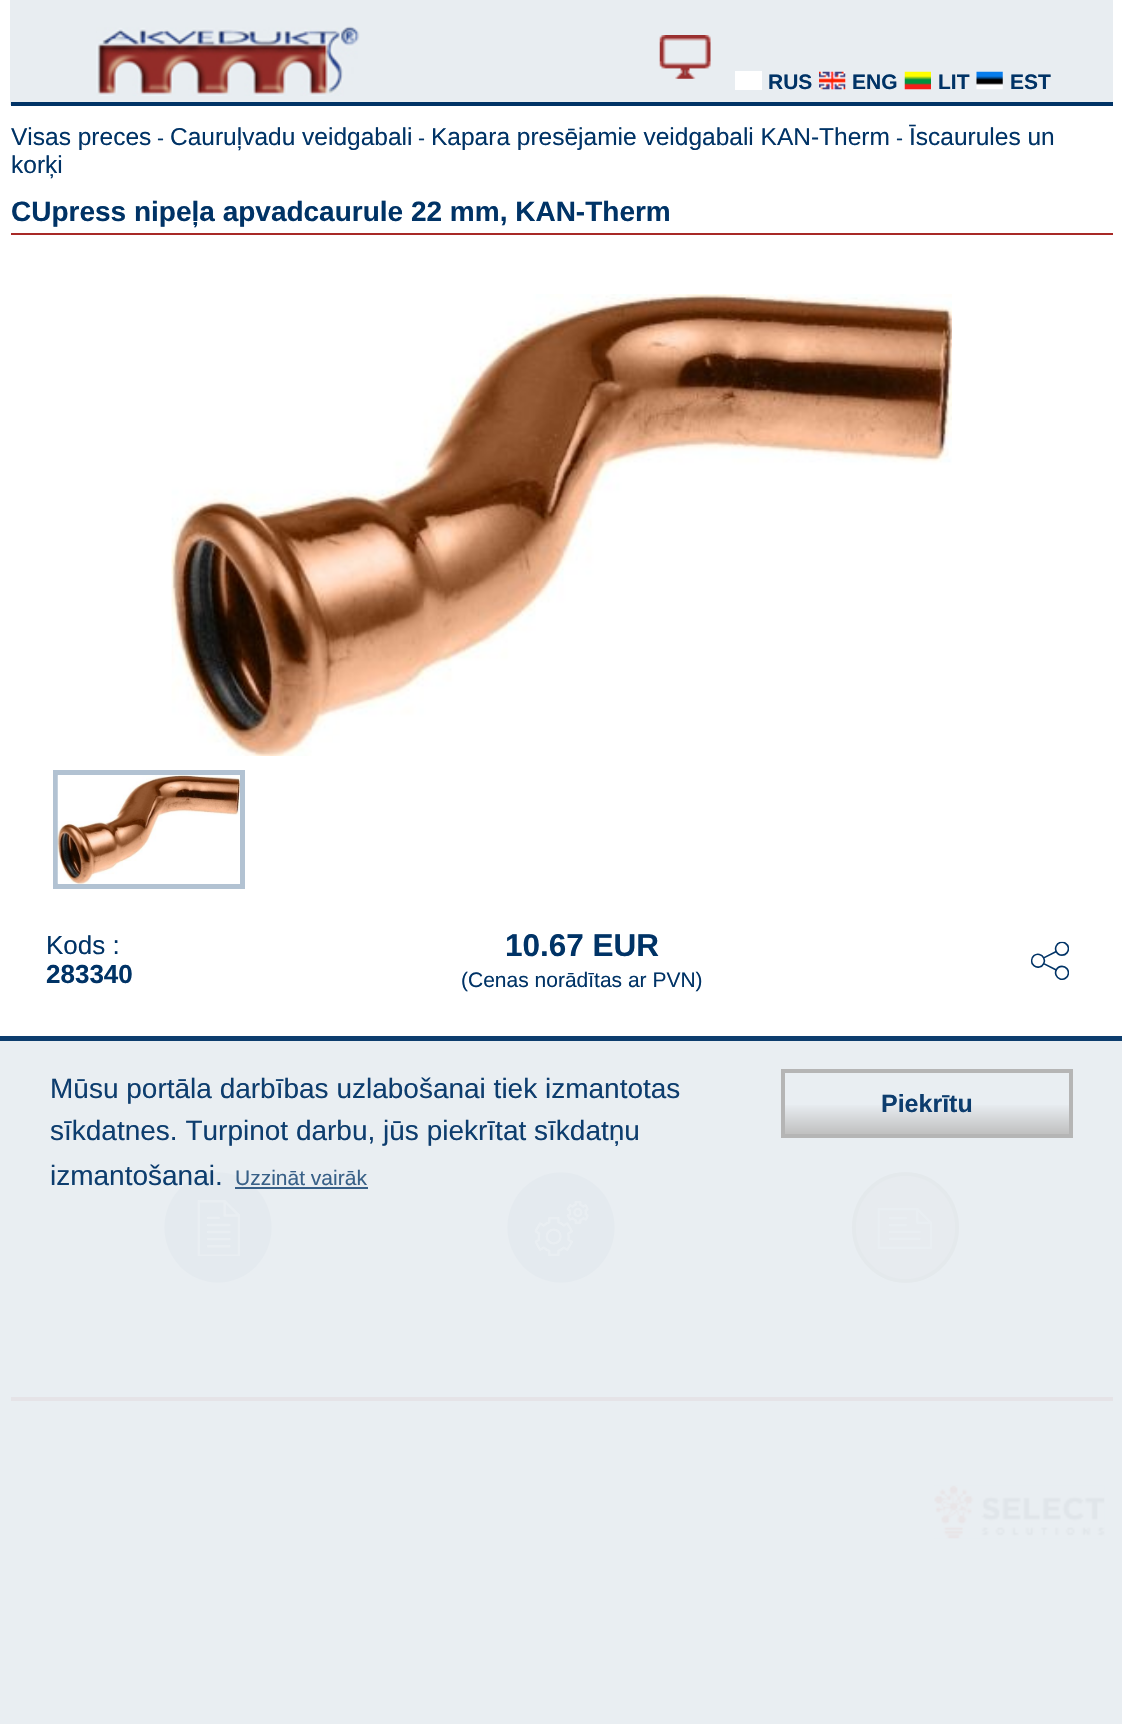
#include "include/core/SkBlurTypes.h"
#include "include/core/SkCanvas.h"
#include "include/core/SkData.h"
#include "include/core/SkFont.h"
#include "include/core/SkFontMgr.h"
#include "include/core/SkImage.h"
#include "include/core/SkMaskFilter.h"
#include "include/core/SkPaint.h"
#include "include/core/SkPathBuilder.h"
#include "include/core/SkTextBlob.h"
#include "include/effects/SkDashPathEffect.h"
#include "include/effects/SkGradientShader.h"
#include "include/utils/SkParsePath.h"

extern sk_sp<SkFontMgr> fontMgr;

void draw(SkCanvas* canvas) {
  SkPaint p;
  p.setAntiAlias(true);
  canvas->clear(SK_ColorWHITE);
  p.setColor(SkColorSetRGB(233, 238, 242));
  canvas->drawRect(SkRect::MakeLTRB(0, 1041, 1122, 1724), p);
  p.setColor(SkColorSetRGB(232, 237, 241));
  canvas->drawRect(SkRect::MakeLTRB(10, 0, 1113, 105), p);
  p.setColor(SkColorSetRGB(0, 51, 102));
  canvas->drawRect(SkRect::MakeLTRB(11, 102, 1113, 106), p);
  canvas->drawImageRect(SkImages::DeferredFromEncodedData(SkData::MakeFromFileName("images/1.png")), SkRect::MakeLTRB(96, 26, 360, 96), SkSamplingOptions());
  canvas->drawImageRect(SkImages::DeferredFromEncodedData(SkData::MakeFromFileName("images/2.png")), SkRect::MakeLTRB(659, 35, 711, 79), SkSamplingOptions());
  p.setColor(SK_ColorWHITE);
  canvas->drawRect(SkRect::MakeLTRB(735, 71, 762, 90), p);
  canvas->drawImageRect(SkImages::DeferredFromEncodedData(SkData::MakeFromFileName("images/3.png")), SkRect::MakeLTRB(819, 71, 846, 90), SkSamplingOptions());
  canvas->drawImageRect(SkImages::DeferredFromEncodedData(SkData::MakeFromFileName("images/4.png")), SkRect::MakeLTRB(904, 71, 931, 90), SkSamplingOptions());
  canvas->drawImageRect(SkImages::DeferredFromEncodedData(SkData::MakeFromFileName("images/5.png")), SkRect::MakeLTRB(976, 71, 1003, 90), SkSamplingOptions());
  p.setColor(SkColorSetRGB(168, 41, 38));
  canvas->drawRect(SkRect::MakeLTRB(11, 233, 1113, 235), p);
  canvas->drawImageRect(SkImages::DeferredFromEncodedData(SkData::MakeFromFileName("images/6.png")), SkRect::MakeLTRB(171, 294, 952, 756), SkSamplingOptions());
  p.setStyle(SkPaint::kStroke_Style);
  p.setStrokeWidth(5);
  p.setColor(SkColorSetRGB(178, 194, 210));
  canvas->drawRect(SkRect::MakeLTRB(55.5f, 772.5f, 242.5f, 886.5f), p);
  canvas->drawImageRect(SkImages::DeferredFromEncodedData(SkData::MakeFromFileName("images/7.png")), SkRect::MakeLTRB(57, 775, 240, 884), SkSamplingOptions());
  canvas->drawImageRect(SkImages::DeferredFromEncodedData(SkData::MakeFromFileName("images/8.png")), SkRect::MakeLTRB(1031, 941, 1069, 980), SkSamplingOptions());
  canvas->drawImageRect(SkImages::DeferredFromEncodedData(SkData::MakeFromFileName("images/9.png")), SkRect::MakeLTRB(548, 1123, 575, 1138), SkSamplingOptions());
  p.setStyle(SkPaint::kFill_Style);
  p.setColor(SkColorSetRGB(228, 234, 239));
  canvas->drawOval(SkRect::MakeLTRB(164.5f, 1172.5f, 271.5f, 1282.5f), p);
  canvas->drawImageRect(SkImages::DeferredFromEncodedData(SkData::MakeFromFileName("images/10.png")), SkRect::MakeLTRB(197, 1200, 240, 1256), SkSamplingOptions());
  canvas->drawOval(SkRect::MakeLTRB(507.5f, 1172.5f, 614.5f, 1282.5f), p);
  canvas->drawImageRect(SkImages::DeferredFromEncodedData(SkData::MakeFromFileName("images/11.png")), SkRect::MakeLTRB(534, 1201, 589, 1256), SkSamplingOptions());
  p.setColor(SkColorSetRGB(231, 235, 239));
  canvas->drawOval(SkRect::MakeLTRB(852, 1172.5f, 959, 1282.5f), p);
  p.setStyle(SkPaint::kStroke_Style);
  p.setStrokeWidth(3.5f);
  p.setColor(SkColorSetRGB(228, 233, 236));
  canvas->drawPath(SkPathBuilder().moveTo(905.5f, 1174).cubicTo(934, 1174, 957, 1198, 957, 1227.5f).cubicTo(957, 1257, 934, 1281, 905.5f, 1281).cubicTo(877, 1281, 854, 1257, 854, 1227.5f).cubicTo(854, 1198, 877, 1174, 905.5f, 1174).close().detach(), p);
  canvas->drawImageRect(SkImages::DeferredFromEncodedData(SkData::MakeFromFileName("images/12.png")), SkRect::MakeLTRB(877, 1208, 932, 1249), SkSamplingOptions());
  p.setStyle(SkPaint::kFill_Style);
  p.setColor(SkColorSetRGB(13, 61, 110));
  canvas->drawRect(SkRect::MakeLTRB(0, 1036, 1122, 1041), p);
  p.setColor(SkColorSetARGB(194, 0, 51, 102));
  canvas->drawRect(SkRect::MakeLTRB(235, 1187, 368, 1189), p);
  {
    const SkColor colors[] = {SkColorSetRGB(233, 238, 242), SkColorSetRGB(233, 238, 242), SkColorSetRGB(192, 192, 192)};
    const float stops[] = {0, 0.5f, 1};
    const SkPoint ends[] = {{927, 1073}, {927, 1134}};
    p.setShader(SkGradientShader::MakeLinear(ends, colors, stops, 3, SkTileMode::kClamp));
    p.setAlpha(255);
  }
  canvas->drawRect(SkRect::MakeLTRB(785, 1105, 1069, 1134), p);
  p.setStyle(SkPaint::kStroke_Style);
  p.setStrokeWidth(4);
  p.setShader(nullptr);
  p.setColor(SkColorSetRGB(181, 181, 181));
  canvas->drawRect(SkRect::MakeLTRB(783, 1071, 1071, 1136), p);
  p.setStyle(SkPaint::kFill_Style);
  p.setColor(SkColorSetRGB(229, 227, 231));
  canvas->drawRect(SkRect::MakeLTRB(11, 1397, 1113, 1401), p);
  canvas->drawImageRect(SkImages::DeferredFromEncodedData(SkData::MakeFromFileName("images/13.png")), SkRect::MakeLTRB(934, 1485, 1105, 1539), SkSamplingOptions());
  SkFont font1(fontMgr->matchFamilyStyle("Liberation Sans", SkFontStyle::Bold()), 21);
  font1.setSubpixel(true);
  p.setColor(SkColorSetRGB(0, 51, 102));
  canvas->drawString("RUS", 768, 89, font1, p);
  canvas->drawString("ENG", 852, 89, font1, p);
  canvas->drawString("LIT", 938, 89, font1, p);
  canvas->drawString("EST", 1010, 89, font1, p);
  SkFont font2(fontMgr->matchFamilyStyle("Liberation Sans", SkFontStyle::Normal()), 24.5f);
  font2.setSubpixel(true);
  canvas->drawString("Visas preces", 11, 145, font2, p);
  SkFont font3(fontMgr->matchFamilyStyle("Liberation Sans", SkFontStyle::Normal()), 21);
  font3.setSubpixel(true);
  canvas->drawString("-", 157, 145, font3, p);
  canvas->drawString("Cauruļvadu veidgabali", 170, 145, font2, p);
  canvas->drawString("-", 418, 145, font3, p);
  canvas->drawString("Kapara presējamie veidgabali KAN-Therm", 431, 145, font2, p);
  canvas->drawString("-", 896, 145, font3, p);
  canvas->drawString("Īscaurules un", 909, 145, font2, p);
  canvas->drawString("korķi", 11, 173, font2, p);
  SkFont font4(fontMgr->matchFamilyStyle("Liberation Sans", SkFontStyle::Bold()), 28);
  font4.setSubpixel(true);
  canvas->drawString("CUpress nipeļa apvadcaurule 22 mm, KAN-Therm", 11, 221, font4, p);
  SkFont font5(fontMgr->matchFamilyStyle("Liberation Sans", SkFontStyle::Normal()), 26);
  font5.setSubpixel(true);
  canvas->drawString("Kods :", 46, 954, font5, p);
  SkFont font6(fontMgr->matchFamilyStyle("Liberation Sans", SkFontStyle::Bold()), 26);
  font6.setSubpixel(true);
  canvas->drawString("283340", 46, 983, font6, p);
  SkFont font7(fontMgr->matchFamilyStyle("Liberation Sans", SkFontStyle::Bold()), 31.5f);
  font7.setSubpixel(true);
  canvas->drawString("10.67 EUR", 505, 956, font7, p);
  canvas->drawString("(Cenas norādītas ar PVN)", 461, 987, font3, p);
  SkFont font8(fontMgr->matchFamilyStyle("Liberation Sans", SkFontStyle::Normal()), 28);
  font8.setSubpixel(true);
  p.setColor(SkColorSetRGB(13, 61, 110));
  canvas->drawString("Mūsu portāla darbības uzlabošanai tiek izmantotas", 50, 1098, font8, p);
  canvas->drawString("sīkdatnes. Turpinot darbu, jūs piekrītat sīkdatņu", 50, 1140, font8, p);
  canvas->drawString("izmantošanai.", 50, 1185, font8, p);
  p.setColor(SkColorSetRGB(56, 96, 135));
  canvas->drawString("Uzzināt vairāk", 235, 1185, font3, p);
  SkFont font9(fontMgr->matchFamilyStyle("Liberation Sans", SkFontStyle::Bold()), 25);
  font9.setSubpixel(true);
  p.setColor(SkColorSetRGB(13, 61, 110));
  canvas->drawString("Piekrītu", 881, 1112, font9, p);
}
